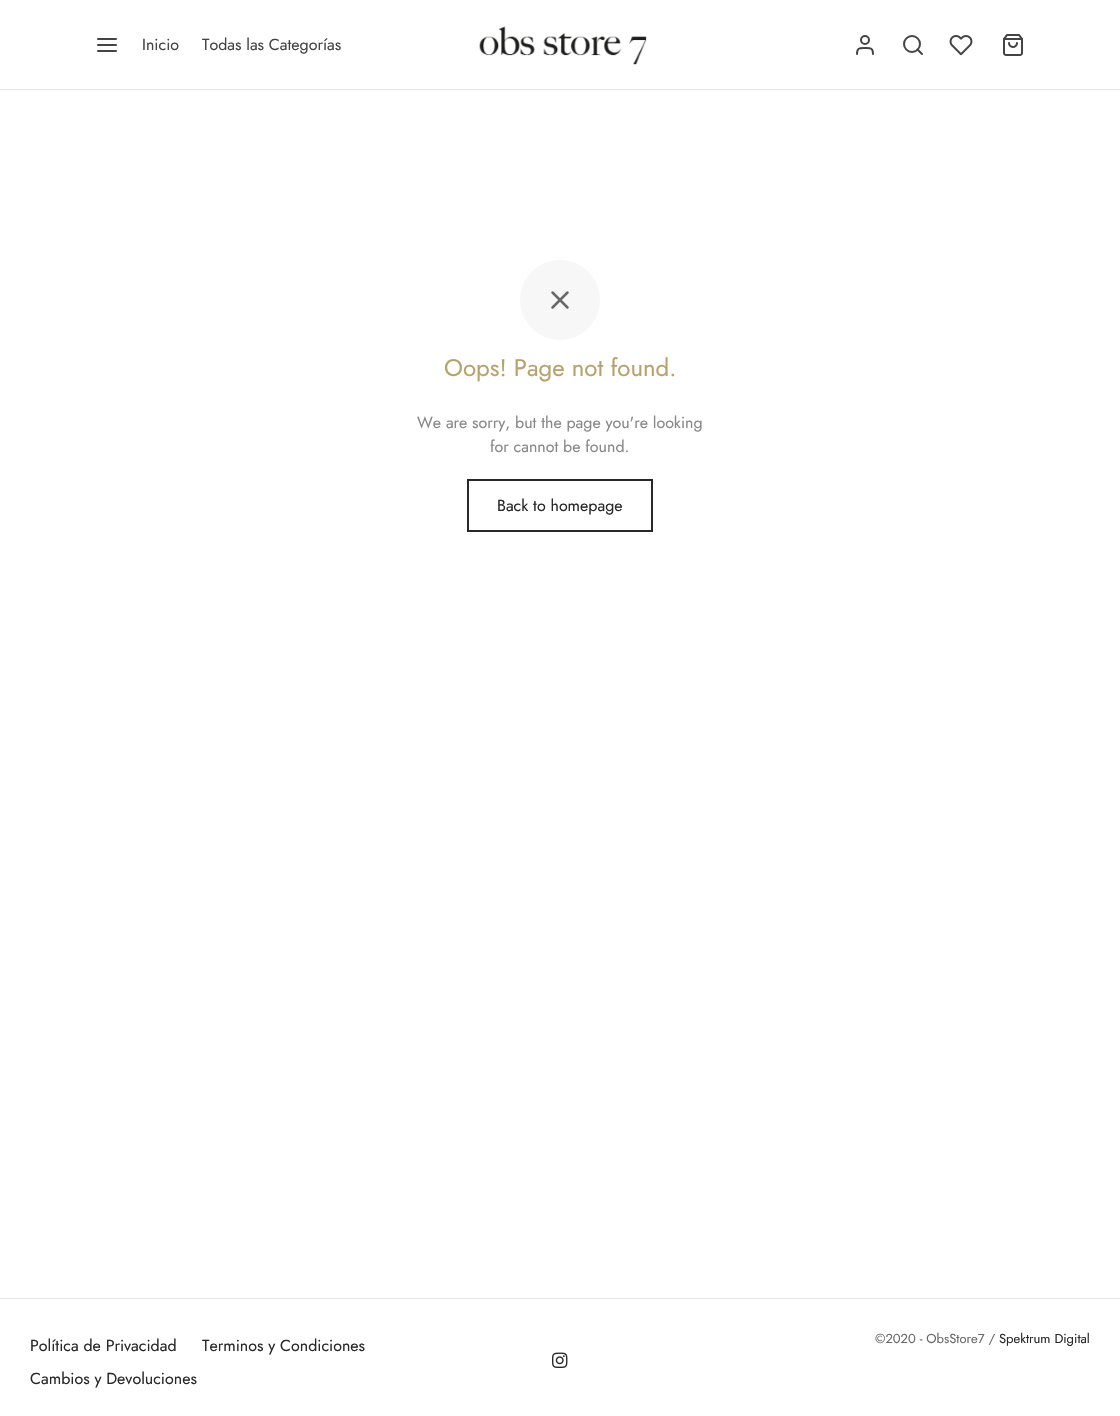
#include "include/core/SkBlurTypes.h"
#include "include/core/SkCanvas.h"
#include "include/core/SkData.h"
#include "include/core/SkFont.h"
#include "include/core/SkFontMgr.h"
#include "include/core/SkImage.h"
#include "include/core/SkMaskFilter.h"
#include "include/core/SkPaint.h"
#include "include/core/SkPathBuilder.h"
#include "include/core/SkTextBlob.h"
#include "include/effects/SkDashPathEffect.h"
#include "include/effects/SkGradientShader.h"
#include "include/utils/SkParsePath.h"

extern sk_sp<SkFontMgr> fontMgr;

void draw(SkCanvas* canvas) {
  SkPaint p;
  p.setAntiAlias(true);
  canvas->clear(SK_ColorWHITE);
  p.setStyle(SkPaint::kStroke_Style);
  p.setStrokeWidth(2);
  p.setStrokeCap(SkPaint::kRound_Cap);
  p.setStrokeJoin(SkPaint::kRound_Join);
  p.setColor(SkColorSetRGB(68, 68, 68));
  canvas->drawPath(SkPathBuilder().moveTo(98, 45).lineTo(116, 45).moveTo(98, 39).lineTo(116, 39).moveTo(98, 51).lineTo(116, 51).detach(), p);
  canvas->drawImageRect(SkImages::DeferredFromEncodedData(SkData::MakeFromFileName("images/1.png")), SkRect::MakeLTRB(479, 26, 647, 65), SkSamplingOptions());
  canvas->drawPath(SkPathBuilder().moveTo(873, 54).cubicTo(873, 47.5f, 870.5f, 48, 865, 48).cubicTo(859.5f, 48, 857, 47.5f, 857, 54).detach(), p);
  p.setStrokeCap(SkPaint::kButt_Cap);
  p.setStrokeJoin(SkPaint::kMiter_Join);
  canvas->drawCircle(865, 40, 4, p);
  canvas->drawCircle(912, 44, 8, p);
  p.setStrokeCap(SkPaint::kRound_Cap);
  p.setStrokeJoin(SkPaint::kRound_Join);
  canvas->drawPath(SkPathBuilder().moveTo(922, 54).lineTo(917.5f, 49.5f).detach(), p);
  canvas->drawImageRect(SkImages::DeferredFromEncodedData(SkData::MakeFromFileName("images/2.png")), SkRect::MakeLTRB(949, 35, 973, 56), SkSamplingOptions());
  canvas->drawImageRect(SkImages::DeferredFromEncodedData(SkData::MakeFromFileName("images/3.png")), SkRect::MakeLTRB(1003, 34, 1023, 56), SkSamplingOptions());
  p.setStyle(SkPaint::kFill_Style);
  p.setColor(SkColorSetRGB(230, 230, 230));
  canvas->drawRect(SkRect::MakeLTRB(0, 89, 1120, 90), p);
  p.setColor(SkColorSetRGB(247, 247, 247));
  canvas->drawCircle(560, 300, 40, p);
  p.setStyle(SkPaint::kStroke_Style);
  p.setStrokeWidth(2.5f);
  p.setColor(SkColorSetRGB(104, 104, 104));
  canvas->drawPath(SkPathBuilder().moveTo(567.5f, 292.5f).lineTo(552.5f, 307.5f).moveTo(552.5f, 292.5f).lineTo(567.5f, 307.5f).detach(), p);
  p.setStrokeWidth(2);
  p.setStrokeCap(SkPaint::kButt_Cap);
  p.setStrokeJoin(SkPaint::kMiter_Join);
  p.setColor(SkColorSetRGB(40, 40, 40));
  canvas->drawRect(SkRect::MakeLTRB(468, 480, 652, 531), p);
  p.setStyle(SkPaint::kFill_Style);
  p.setColor(SkColorSetRGB(230, 230, 230));
  canvas->drawRect(SkRect::MakeLTRB(0, 1298, 1120, 1299), p);
  canvas->drawImageRect(SkImages::DeferredFromEncodedData(SkData::MakeFromFileName("images/4.png")), SkRect::MakeLTRB(552, 1352, 568, 1368), SkSamplingOptions());
  SkFont font1(fontMgr->matchFamilyStyle("Jost", SkFontStyle::Normal()), 16);
  font1.setSubpixel(true);
  p.setColor(SkColorSetRGB(68, 68, 68));
  canvas->drawString("Inicio", 142, 50, font1, p);
  canvas->drawString("Todas las Categorías", 202, 50, font1, p);
  SkFont font2(fontMgr->matchFamilyStyle("Jost", SkFontStyle::Normal()), 24);
  font2.setSubpixel(true);
  p.setColor(SkColorSetRGB(185, 161, 107));
  canvas->drawString("Oops! Page not found.", 444, 376, font2, p);
  p.setColor(SkColorSetRGB(136, 136, 136));
  canvas->drawString("We are sorry, but the page you're looking", 417, 428, font1, p);
  canvas->drawString("for cannot be found.", 490, 452, font1, p);
  p.setColor(SkColorSetRGB(40, 40, 40));
  canvas->drawString("Back to homepage", 497, 511, font1, p);
  canvas->drawString("Política de Privacidad", 30, 1351, font1, p);
  canvas->drawString("Terminos y Condiciones", 202, 1351, font1, p);
  canvas->drawString("Cambios y Devoluciones", 30, 1384, font1, p);
  SkFont font3(fontMgr->matchFamilyStyle("Jost", SkFontStyle::Normal()), 13);
  font3.setSubpixel(true);
  p.setColor(SkColorSetRGB(104, 104, 104));
  canvas->drawString("©2020 - ObsStore7 /", 875, 1343, font3, p);
  p.setColor(SkColorSetRGB(40, 40, 40));
  canvas->drawString("Spektrum Digital", 999, 1343, font3, p);
}
